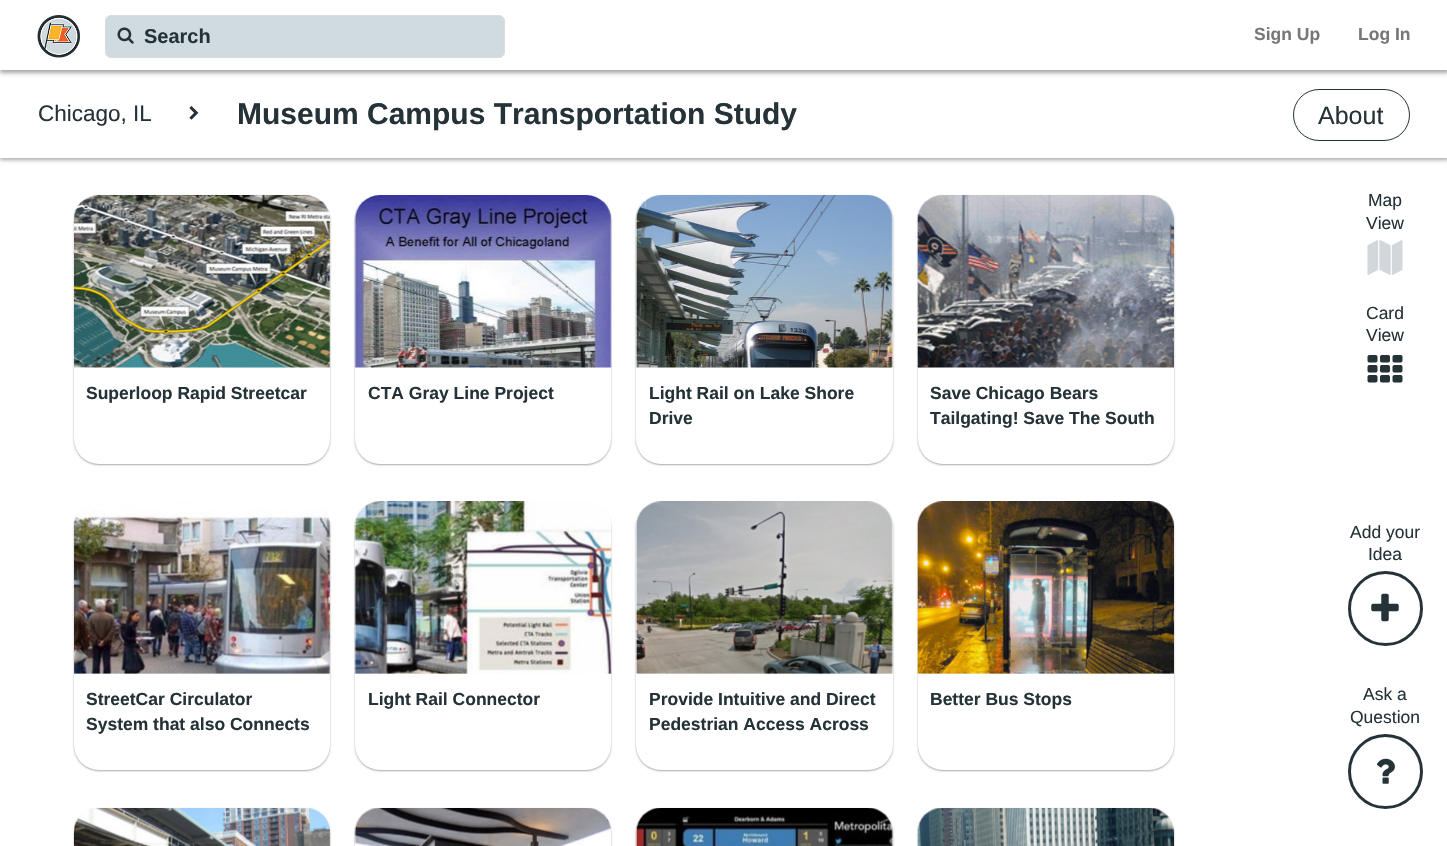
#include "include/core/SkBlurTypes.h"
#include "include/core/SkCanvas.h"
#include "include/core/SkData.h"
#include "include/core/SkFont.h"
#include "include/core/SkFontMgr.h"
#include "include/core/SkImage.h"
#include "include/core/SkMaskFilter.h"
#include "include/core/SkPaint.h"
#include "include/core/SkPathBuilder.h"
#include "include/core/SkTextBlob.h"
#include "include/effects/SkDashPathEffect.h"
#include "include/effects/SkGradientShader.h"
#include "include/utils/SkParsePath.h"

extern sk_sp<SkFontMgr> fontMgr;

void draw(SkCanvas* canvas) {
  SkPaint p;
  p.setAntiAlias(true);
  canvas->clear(SK_ColorWHITE);
  p.setColor(SkColorSetRGB(168, 168, 168));
  p.setMaskFilter(SkMaskFilter::MakeBlur(kNormal_SkBlurStyle, 2));
  canvas->drawRect(SkRect::MakeLTRB(0, 71, 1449, 160), p);
  p.setMaskFilter(nullptr);
  p.setColor(SK_ColorWHITE);
  canvas->drawRect(SkRect::MakeLTRB(0, 70, 1447, 158), p);
  p.setColor(SkColorSetRGB(168, 168, 168));
  p.setMaskFilter(SkMaskFilter::MakeBlur(kNormal_SkBlurStyle, 2));
  canvas->drawRect(SkRect::MakeLTRB(0, 1, 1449, 73), p);
  p.setMaskFilter(nullptr);
  p.setColor(SK_ColorWHITE);
  canvas->drawRect(SkRect::MakeLTRB(0, 0, 1447, 70), p);
  canvas->drawImageRect(SkImages::DeferredFromEncodedData(SkData::MakeFromFileName("images/1.png")), SkRect::MakeLTRB(37, 15, 80, 58), SkSamplingOptions());
  p.setColor(SkColorSetRGB(208, 219, 224));
  canvas->drawRoundRect(SkRect::MakeLTRB(105.5f, 15.5f, 504.5f, 57.5f), 5.5f, 5.5f, p);
  p.setStyle(SkPaint::kStroke_Style);
  p.setStrokeWidth(1);
  p.setColor(SkColorSetRGB(219, 219, 219));
  canvas->drawRoundRect(SkRect::MakeLTRB(105.5f, 15.5f, 504.5f, 57.5f), 5.5f, 5.5f, p);
  canvas->drawImageRect(SkImages::DeferredFromEncodedData(SkData::MakeFromFileName("images/2.png")), SkRect::MakeLTRB(117, 27, 134, 44), SkSamplingOptions());
  canvas->drawImageRect(SkImages::DeferredFromEncodedData(SkData::MakeFromFileName("images/3.png")), SkRect::MakeLTRB(189, 106, 199, 120), SkSamplingOptions());
  p.setColor(SkColorSetRGB(37, 50, 56));
  canvas->drawRoundRect(SkRect::MakeLTRB(1293.5f, 89.5f, 1409.5f, 140.5f), 25.5f, 25.5f, p);
  canvas->drawImageRect(SkImages::DeferredFromEncodedData(SkData::MakeFromFileName("images/4.png")), SkRect::MakeLTRB(1367, 240, 1403, 275), SkSamplingOptions());
  canvas->drawImageRect(SkImages::DeferredFromEncodedData(SkData::MakeFromFileName("images/5.png")), SkRect::MakeLTRB(1367, 355, 1403, 383), SkSamplingOptions());
  p.setStyle(SkPaint::kFill_Style);
  p.setColor(SkColorSetRGB(168, 168, 168));
  p.setMaskFilter(SkMaskFilter::MakeBlur(kNormal_SkBlurStyle, 1));
  canvas->drawRoundRect(SkRect::MakeLTRB(74, 196, 330, 465), 25, 25, p);
  p.setMaskFilter(nullptr);
  p.setColor(SK_ColorWHITE);
  canvas->drawRoundRect(SkRect::MakeLTRB(74, 195, 330, 464), 25, 25, p);
  canvas->drawImageRect(SkImages::DeferredFromEncodedData(SkData::MakeFromFileName("images/6.png")), SkRect::MakeLTRB(74, 195, 331, 368), SkSamplingOptions());
  p.setColor(SkColorSetRGB(168, 168, 168));
  p.setMaskFilter(SkMaskFilter::MakeBlur(kNormal_SkBlurStyle, 1));
  canvas->drawRoundRect(SkRect::MakeLTRB(355, 196, 611, 465), 25, 25, p);
  p.setMaskFilter(nullptr);
  p.setColor(SK_ColorWHITE);
  canvas->drawRoundRect(SkRect::MakeLTRB(355, 195, 611, 464), 25, 25, p);
  canvas->drawImageRect(SkImages::DeferredFromEncodedData(SkData::MakeFromFileName("images/7.png")), SkRect::MakeLTRB(354, 195, 612, 368), SkSamplingOptions());
  p.setColor(SkColorSetRGB(168, 168, 168));
  p.setMaskFilter(SkMaskFilter::MakeBlur(kNormal_SkBlurStyle, 1));
  canvas->drawRoundRect(SkRect::MakeLTRB(636, 196, 893, 465), 25, 25, p);
  p.setMaskFilter(nullptr);
  p.setColor(SK_ColorWHITE);
  canvas->drawRoundRect(SkRect::MakeLTRB(636, 195, 893, 464), 25, 25, p);
  canvas->drawImageRect(SkImages::DeferredFromEncodedData(SkData::MakeFromFileName("images/8.png")), SkRect::MakeLTRB(635, 195, 893, 368), SkSamplingOptions());
  p.setColor(SkColorSetRGB(168, 168, 168));
  p.setMaskFilter(SkMaskFilter::MakeBlur(kNormal_SkBlurStyle, 1));
  canvas->drawRoundRect(SkRect::MakeLTRB(918, 196, 1174, 465), 25, 25, p);
  p.setMaskFilter(nullptr);
  p.setColor(SK_ColorWHITE);
  canvas->drawRoundRect(SkRect::MakeLTRB(918, 195, 1174, 464), 25, 25, p);
  canvas->drawImageRect(SkImages::DeferredFromEncodedData(SkData::MakeFromFileName("images/9.png")), SkRect::MakeLTRB(917, 195, 1174, 368), SkSamplingOptions());
  p.setColor(SkColorSetRGB(168, 168, 168));
  p.setMaskFilter(SkMaskFilter::MakeBlur(kNormal_SkBlurStyle, 1));
  canvas->drawRoundRect(SkRect::MakeLTRB(74, 503, 330, 771), 25, 25, p);
  p.setMaskFilter(nullptr);
  p.setColor(SK_ColorWHITE);
  canvas->drawRoundRect(SkRect::MakeLTRB(74, 501, 330, 770), 25, 25, p);
  canvas->drawImageRect(SkImages::DeferredFromEncodedData(SkData::MakeFromFileName("images/10.png")), SkRect::MakeLTRB(74, 501, 331, 674), SkSamplingOptions());
  p.setColor(SkColorSetRGB(168, 168, 168));
  p.setMaskFilter(SkMaskFilter::MakeBlur(kNormal_SkBlurStyle, 1));
  canvas->drawRoundRect(SkRect::MakeLTRB(355, 503, 611, 771), 25, 25, p);
  p.setMaskFilter(nullptr);
  p.setColor(SK_ColorWHITE);
  canvas->drawRoundRect(SkRect::MakeLTRB(355, 501, 611, 770), 25, 25, p);
  canvas->drawImageRect(SkImages::DeferredFromEncodedData(SkData::MakeFromFileName("images/11.png")), SkRect::MakeLTRB(354, 501, 612, 674), SkSamplingOptions());
  p.setColor(SkColorSetRGB(168, 168, 168));
  p.setMaskFilter(SkMaskFilter::MakeBlur(kNormal_SkBlurStyle, 1));
  canvas->drawRoundRect(SkRect::MakeLTRB(636, 503, 893, 771), 25, 25, p);
  p.setMaskFilter(nullptr);
  p.setColor(SK_ColorWHITE);
  canvas->drawRoundRect(SkRect::MakeLTRB(636, 501, 893, 770), 25, 25, p);
  canvas->drawImageRect(SkImages::DeferredFromEncodedData(SkData::MakeFromFileName("images/12.png")), SkRect::MakeLTRB(635, 501, 893, 674), SkSamplingOptions());
  p.setColor(SkColorSetRGB(168, 168, 168));
  p.setMaskFilter(SkMaskFilter::MakeBlur(kNormal_SkBlurStyle, 1));
  canvas->drawRoundRect(SkRect::MakeLTRB(918, 503, 1174, 771), 25, 25, p);
  p.setMaskFilter(nullptr);
  p.setColor(SK_ColorWHITE);
  canvas->drawRoundRect(SkRect::MakeLTRB(918, 501, 1174, 770), 25, 25, p);
  canvas->drawImageRect(SkImages::DeferredFromEncodedData(SkData::MakeFromFileName("images/13.png")), SkRect::MakeLTRB(917, 501, 1174, 674), SkSamplingOptions());
  p.setColor(SkColorSetRGB(168, 168, 168));
  p.setMaskFilter(SkMaskFilter::MakeBlur(kNormal_SkBlurStyle, 1));
  canvas->drawRoundRect(SkRect::MakeLTRB(74, 809, 330, 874), 25, 25, p);
  p.setMaskFilter(nullptr);
  canvas->drawImageRect(SkImages::DeferredFromEncodedData(SkData::MakeFromFileName("images/14.png")), SkRect::MakeLTRB(74, 808, 331, 846), SkSamplingOptions());
  p.setMaskFilter(SkMaskFilter::MakeBlur(kNormal_SkBlurStyle, 1));
  canvas->drawRoundRect(SkRect::MakeLTRB(355, 809, 611, 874), 25, 25, p);
  p.setMaskFilter(nullptr);
  p.setColor(SK_ColorWHITE);
  canvas->drawPath(SkPathBuilder().moveTo(380, 808).lineTo(586, 808).cubicTo(600, 808, 611, 819, 611, 833).lineTo(611, 846).lineTo(355, 846).lineTo(355, 833).cubicTo(355, 819, 366, 808, 380, 808).close().detach(), p);
  canvas->drawImageRect(SkImages::DeferredFromEncodedData(SkData::MakeFromFileName("images/15.png")), SkRect::MakeLTRB(354, 808, 611, 846), SkSamplingOptions());
  p.setColor(SkColorSetRGB(168, 168, 168));
  p.setMaskFilter(SkMaskFilter::MakeBlur(kNormal_SkBlurStyle, 1));
  canvas->drawRoundRect(SkRect::MakeLTRB(636, 809, 893, 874), 25, 25, p);
  p.setMaskFilter(nullptr);
  p.setColor(SK_ColorWHITE);
  canvas->drawPath(SkPathBuilder().moveTo(661, 808).lineTo(868, 808).cubicTo(882, 808, 893, 819, 893, 833).lineTo(893, 846).lineTo(636, 846).lineTo(636, 833).cubicTo(636, 819, 647, 808, 661, 808).close().detach(), p);
  canvas->drawImageRect(SkImages::DeferredFromEncodedData(SkData::MakeFromFileName("images/16.png")), SkRect::MakeLTRB(635, 808, 893, 846), SkSamplingOptions());
  p.setColor(SkColorSetRGB(168, 168, 168));
  p.setMaskFilter(SkMaskFilter::MakeBlur(kNormal_SkBlurStyle, 1));
  canvas->drawRoundRect(SkRect::MakeLTRB(918, 809, 1174, 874), 25, 25, p);
  p.setMaskFilter(nullptr);
  p.setColor(SK_ColorWHITE);
  canvas->drawPath(SkPathBuilder().moveTo(943, 808).lineTo(1149, 808).cubicTo(1163, 808, 1174, 819, 1174, 833).lineTo(1174, 846).lineTo(918, 846).lineTo(918, 833).cubicTo(918, 819, 929, 808, 943, 808).close().detach(), p);
  canvas->drawImageRect(SkImages::DeferredFromEncodedData(SkData::MakeFromFileName("images/17.png")), SkRect::MakeLTRB(917, 808, 1174, 846), SkSamplingOptions());
  p.setStyle(SkPaint::kStroke_Style);
  p.setStrokeWidth(3);
  p.setColor(SkColorSetRGB(37, 50, 56));
  canvas->drawCircle(1385.5f, 608.5f, 36, p);
  canvas->drawImageRect(SkImages::DeferredFromEncodedData(SkData::MakeFromFileName("images/18.png")), SkRect::MakeLTRB(1371, 593, 1399, 622), SkSamplingOptions());
  canvas->drawCircle(1385.5f, 771.5f, 36, p);
  canvas->drawImageRect(SkImages::DeferredFromEncodedData(SkData::MakeFromFileName("images/19.png")), SkRect::MakeLTRB(1376, 758, 1395, 784), SkSamplingOptions());
  SkFont font1(fontMgr->matchFamilyStyle("Liberation Sans", SkFontStyle::Bold()), 20);
  font1.setSubpixel(true);
  p.setStyle(SkPaint::kFill_Style);
  canvas->drawString("Search", 144, 43, font1, p);
  SkFont font2(fontMgr->matchFamilyStyle("Liberation Sans", SkFontStyle::Bold()), 17.5f);
  font2.setSubpixel(true);
  p.setColor(SkColorSetRGB(119, 119, 119));
  canvas->drawString("Sign Up", 1254, 40, font2, p);
  canvas->drawString("Log In", 1358, 40, font2, p);
  SkFont font3(fontMgr->matchFamilyStyle("Liberation Sans", SkFontStyle::Normal()), 22.5f);
  font3.setSubpixel(true);
  p.setColor(SkColorSetRGB(37, 50, 56));
  canvas->drawString("Chicago, IL", 38, 121, font3, p);
  SkFont font4(fontMgr->matchFamilyStyle("Liberation Sans", SkFontStyle::Bold()), 30);
  font4.setSubpixel(true);
  canvas->drawString("Museum Campus Transportation Study", 237, 124, font4, p);
  SkFont font5(fontMgr->matchFamilyStyle("Liberation Sans", SkFontStyle::Normal()), 25);
  font5.setSubpixel(true);
  canvas->drawString("About", 1318, 124, font5, p);
  SkFont font6(fontMgr->matchFamilyStyle("Liberation Sans", SkFontStyle::Normal()), 17.5f);
  font6.setSubpixel(true);
  canvas->drawString("Map", 1368, 206, font6, p);
  canvas->drawString("View", 1366, 229, font6, p);
  canvas->drawString("Card", 1366, 319, font6, p);
  canvas->drawString("View", 1366, 341, font6, p);
  canvas->drawString("Superloop Rapid Streetcar", 86, 399, font2, p);
  canvas->drawString("CTA Gray Line Project", 368, 399, font2, p);
  canvas->drawString("Light Rail on Lake Shore", 649, 399, font2, p);
  canvas->drawString("Drive", 649, 424, font2, p);
  canvas->drawString("Save Chicago Bears", 930, 399, font2, p);
  canvas->drawString("Tailgating! Save The South", 930, 424, font2, p);
  canvas->drawString("StreetCar Circulator", 86, 705, font2, p);
  canvas->drawString("System that also Connects", 86, 730, font2, p);
  canvas->drawString("Light Rail Connector", 368, 705, font2, p);
  canvas->drawString("Provide Intuitive and Direct", 649, 705, font2, p);
  canvas->drawString("Pedestrian Access Across", 649, 730, font2, p);
  canvas->drawString("Better Bus Stops", 930, 705, font2, p);
  canvas->drawString("Add your", 1350, 538, font6, p);
  canvas->drawString("Idea", 1368, 560, font6, p);
  canvas->drawString("Ask a", 1363, 700, font6, p);
  canvas->drawString("Question", 1350, 723, font6, p);
}
